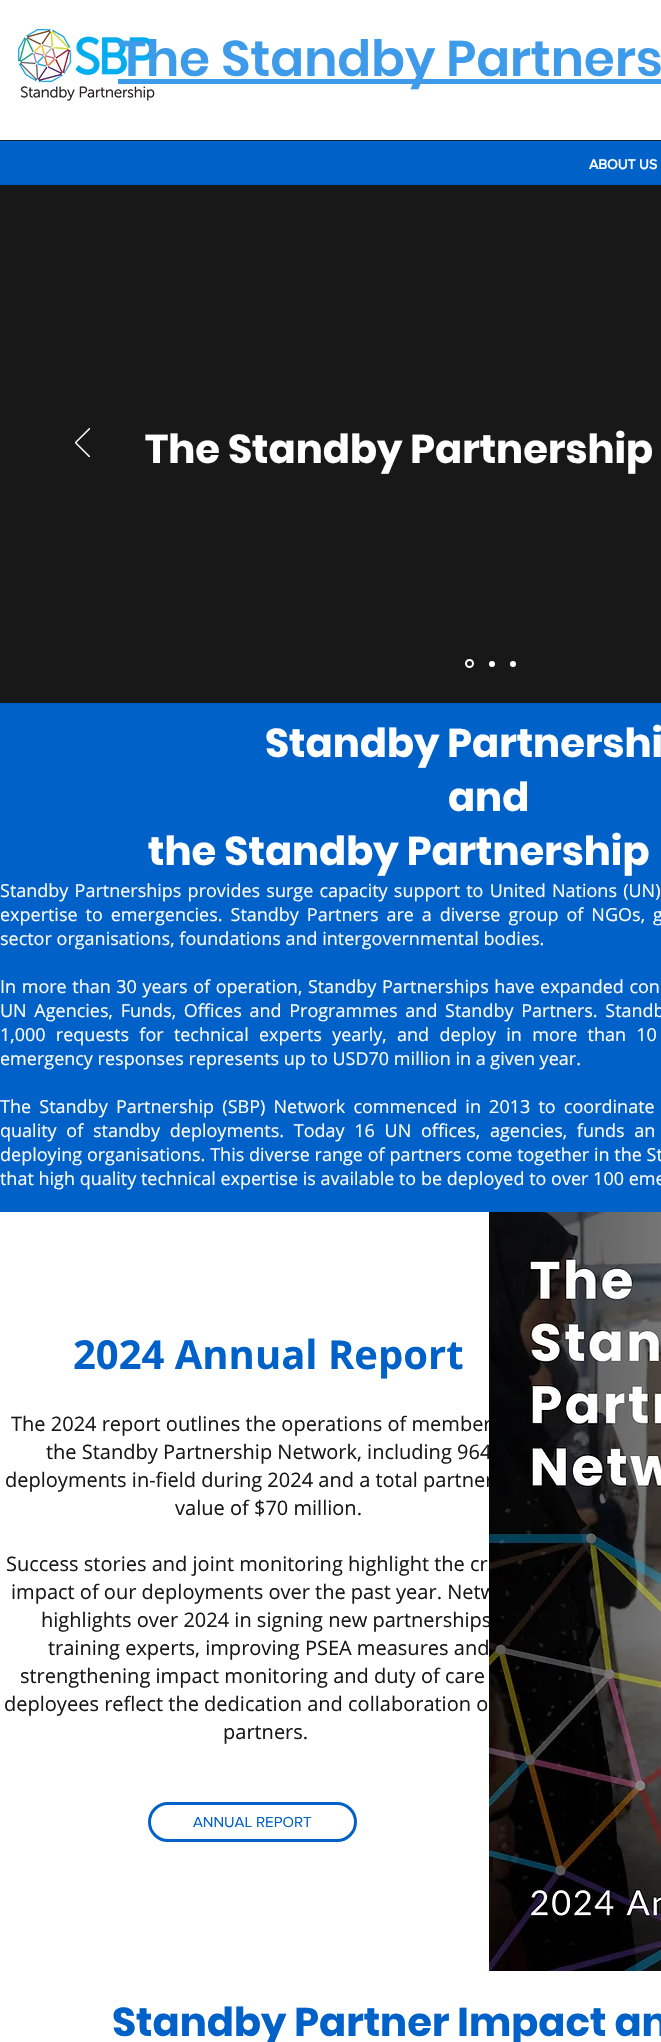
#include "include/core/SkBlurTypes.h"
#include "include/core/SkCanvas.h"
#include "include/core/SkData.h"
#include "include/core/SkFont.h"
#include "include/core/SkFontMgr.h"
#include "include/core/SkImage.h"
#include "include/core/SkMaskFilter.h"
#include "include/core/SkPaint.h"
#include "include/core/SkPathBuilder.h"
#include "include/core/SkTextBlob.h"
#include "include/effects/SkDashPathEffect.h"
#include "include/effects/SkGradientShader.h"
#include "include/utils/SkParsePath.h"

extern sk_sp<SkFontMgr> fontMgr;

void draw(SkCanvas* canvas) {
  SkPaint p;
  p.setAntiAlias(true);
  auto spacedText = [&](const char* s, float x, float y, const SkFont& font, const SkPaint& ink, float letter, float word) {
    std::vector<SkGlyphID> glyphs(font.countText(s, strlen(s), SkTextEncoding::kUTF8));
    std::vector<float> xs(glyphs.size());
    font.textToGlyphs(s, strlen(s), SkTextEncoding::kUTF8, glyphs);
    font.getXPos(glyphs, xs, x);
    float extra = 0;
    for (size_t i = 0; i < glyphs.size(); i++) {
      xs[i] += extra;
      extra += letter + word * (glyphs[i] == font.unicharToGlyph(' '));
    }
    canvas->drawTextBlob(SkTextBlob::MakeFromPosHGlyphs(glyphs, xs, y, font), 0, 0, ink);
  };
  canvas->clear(SK_ColorWHITE);
  canvas->drawImageRect(SkImages::DeferredFromEncodedData(SkData::MakeFromFileName("images/1.png")), SkRect::MakeLTRB(17, 29, 155, 101), SkSamplingOptions());
  p.setColor(SkColorSetRGB(61, 155, 233));
  canvas->drawRect(SkRect::MakeLTRB(118, 79, 661, 84), p);
  p.setColor(SkColorSetRGB(0, 97, 200));
  canvas->drawRect(SkRect::MakeLTRB(0, 141, 661, 185), p);
  p.setColor(SkColorSetRGB(20, 35, 50));
  canvas->drawRect(SkRect::MakeLTRB(0, 140, 661, 141), p);
  p.setColor(SkColorSetRGB(24, 24, 24));
  canvas->drawRect(SkRect::MakeLTRB(0, 185, 661, 703), p);
  canvas->drawImageRect(SkImages::DeferredFromEncodedData(SkData::MakeFromFileName("images/2.png")), SkRect::MakeLTRB(75, 428, 90, 457), SkSamplingOptions());
  p.setStyle(SkPaint::kStroke_Style);
  p.setStrokeWidth(2);
  p.setColor(SK_ColorWHITE);
  canvas->drawCircle(469.5f, 663.5f, 3.5f, p);
  p.setStyle(SkPaint::kFill_Style);
  canvas->drawCircle(492, 664, 3, p);
  canvas->drawCircle(513, 664, 3, p);
  p.setColor(SkColorSetRGB(0, 97, 200));
  canvas->drawRect(SkRect::MakeLTRB(0, 703, 661, 1212), p);
  p.setStyle(SkPaint::kStroke_Style);
  p.setStrokeWidth(3);
  canvas->drawRoundRect(SkRect::MakeLTRB(149.5f, 1803.5f, 355.5f, 1840.5f), 18.5f, 18.5f, p);
  SkFont font1(fontMgr->matchFamilyStyle("Poppins", SkFontStyle(600, SkFontStyle::kNormal_Width, SkFontStyle::kUpright_Slant)), 50);
  font1.setSubpixel(true);
  p.setStyle(SkPaint::kFill_Style);
  p.setColor(SkColorSetRGB(61, 155, 233));
  canvas->drawString("The Standby Partners", 118, 76, font1, p);
  SkFont font2(fontMgr->matchFamilyStyle("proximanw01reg", SkFontStyle::Bold()), 14);
  font2.setSubpixel(true);
  p.setColor(SK_ColorWHITE);
  canvas->drawString("ABOUT US", 589, 169, font2, p);
  SkFont font3(fontMgr->matchFamilyStyle("Poppins", SkFontStyle::Bold()), 40);
  font3.setSubpixel(true);
  canvas->drawString("The Standby Partnership", 145, 463, font3, p);
  canvas->drawString("Standby Partnershi", 265, 757, font3, p);
  canvas->drawString("and", 448, 811, font3, p);
  canvas->drawString("the Standby Partnership", 148, 865, font3, p);
  SkFont font4(fontMgr->matchFamilyStyle("Open Sans", SkFontStyle::Normal()), 18);
  font4.setSubpixel(true);
  spacedText("Standby Partnerships provides surge capacity support to United Nations (UN)", 0, 897, font4, p, 0, 1.5f);
  spacedText("expertise to emergencies. Standby Partners are a diverse group of NGOs, g", 0, 921, font4, p, 0, 3.25f);
  canvas->drawString("sector organisations, foundations and intergovernmental bodies.", 0, 945, font4, p);
  spacedText("In more than 30 years of operation, Standby Partnerships have expanded con", 0, 993, font4, p, 0, 0.9f);
  spacedText("UN Agencies, Funds, Offices and Programmes and Standby Partners. Standb", 0, 1017, font4, p, 0, 3);
  spacedText("1,000 requests for technical experts yearly, and deploy in more than 10", 0, 1041, font4, p, 0, 5.6f);
  canvas->drawString("emergency responses represents up to USD70 million in a given year.", 0, 1065, font4, p);
  spacedText("The Standby Partnership (SBP) Network commenced in 2013 to coordinate", 0, 1113, font4, p, 0, 3.5f);
  spacedText("quality of standby deployments. Today 16 UN offices, agencies, funds an", 0, 1137, font4, p, 0, 5);
  spacedText("deploying organisations. This diverse range of partners come together in the St", 0, 1161, font4, p, 0, 0.1f);
  canvas->drawString("that high quality technical expertise is available to be deployed to over 100 eme", 0, 1185, font4, p);
  SkFont font5(fontMgr->matchFamilyStyle("Open Sans", SkFontStyle::Bold()), 40);
  font5.setSubpixel(true);
  p.setColor(SkColorSetRGB(0, 97, 200));
  canvas->drawString("2024 Annual Report", 73, 1369, font5, p);
  SkFont font6(fontMgr->matchFamilyStyle("Open Sans", SkFontStyle::Normal()), 20);
  font6.setSubpixel(true);
  p.setColor(SkColorSetRGB(24, 24, 24));
  canvas->drawString("The 2024 report outlines the operations of member", 11, 1431, font6, p);
  canvas->drawString("the Standby Partnership Network, including 964", 46, 1459, font6, p);
  canvas->drawString("deployments in-field during 2024 and a total partner", 5, 1487, font6, p);
  canvas->drawString("value of $70 million.", 175, 1515, font6, p);
  canvas->drawString("Success stories and joint monitoring highlight the cr", 6, 1571, font6, p);
  canvas->drawString("impact of our deployments over the past year. Netw", 11, 1599, font6, p);
  canvas->drawString("highlights over 2024 in signing new partnerships", 41, 1627, font6, p);
  canvas->drawString("training experts, improving PSEA measures and", 48, 1655, font6, p);
  canvas->drawString("strengthening impact monitoring and duty of care", 20, 1683, font6, p);
  canvas->drawString("deployees reflect the dedication and collaboration o", 4, 1711, font6, p);
  canvas->drawString("partners.", 223, 1739, font6, p);
  SkFont font7(fontMgr->matchFamilyStyle("proximanw01reg", SkFontStyle::Normal()), 15);
  font7.setSubpixel(true);
  p.setColor(SkColorSetRGB(0, 97, 200));
  canvas->drawString("ANNUAL REPORT", 193, 1827, font7, p);
  canvas->drawImageRect(SkImages::DeferredFromEncodedData(SkData::MakeFromFileName("images/3.png")), SkRect::MakeLTRB(489, 1212, 661, 1971), SkSamplingOptions());
  canvas->drawString("Standby Partner Impact an", 112, 2036, font3, p);
}
